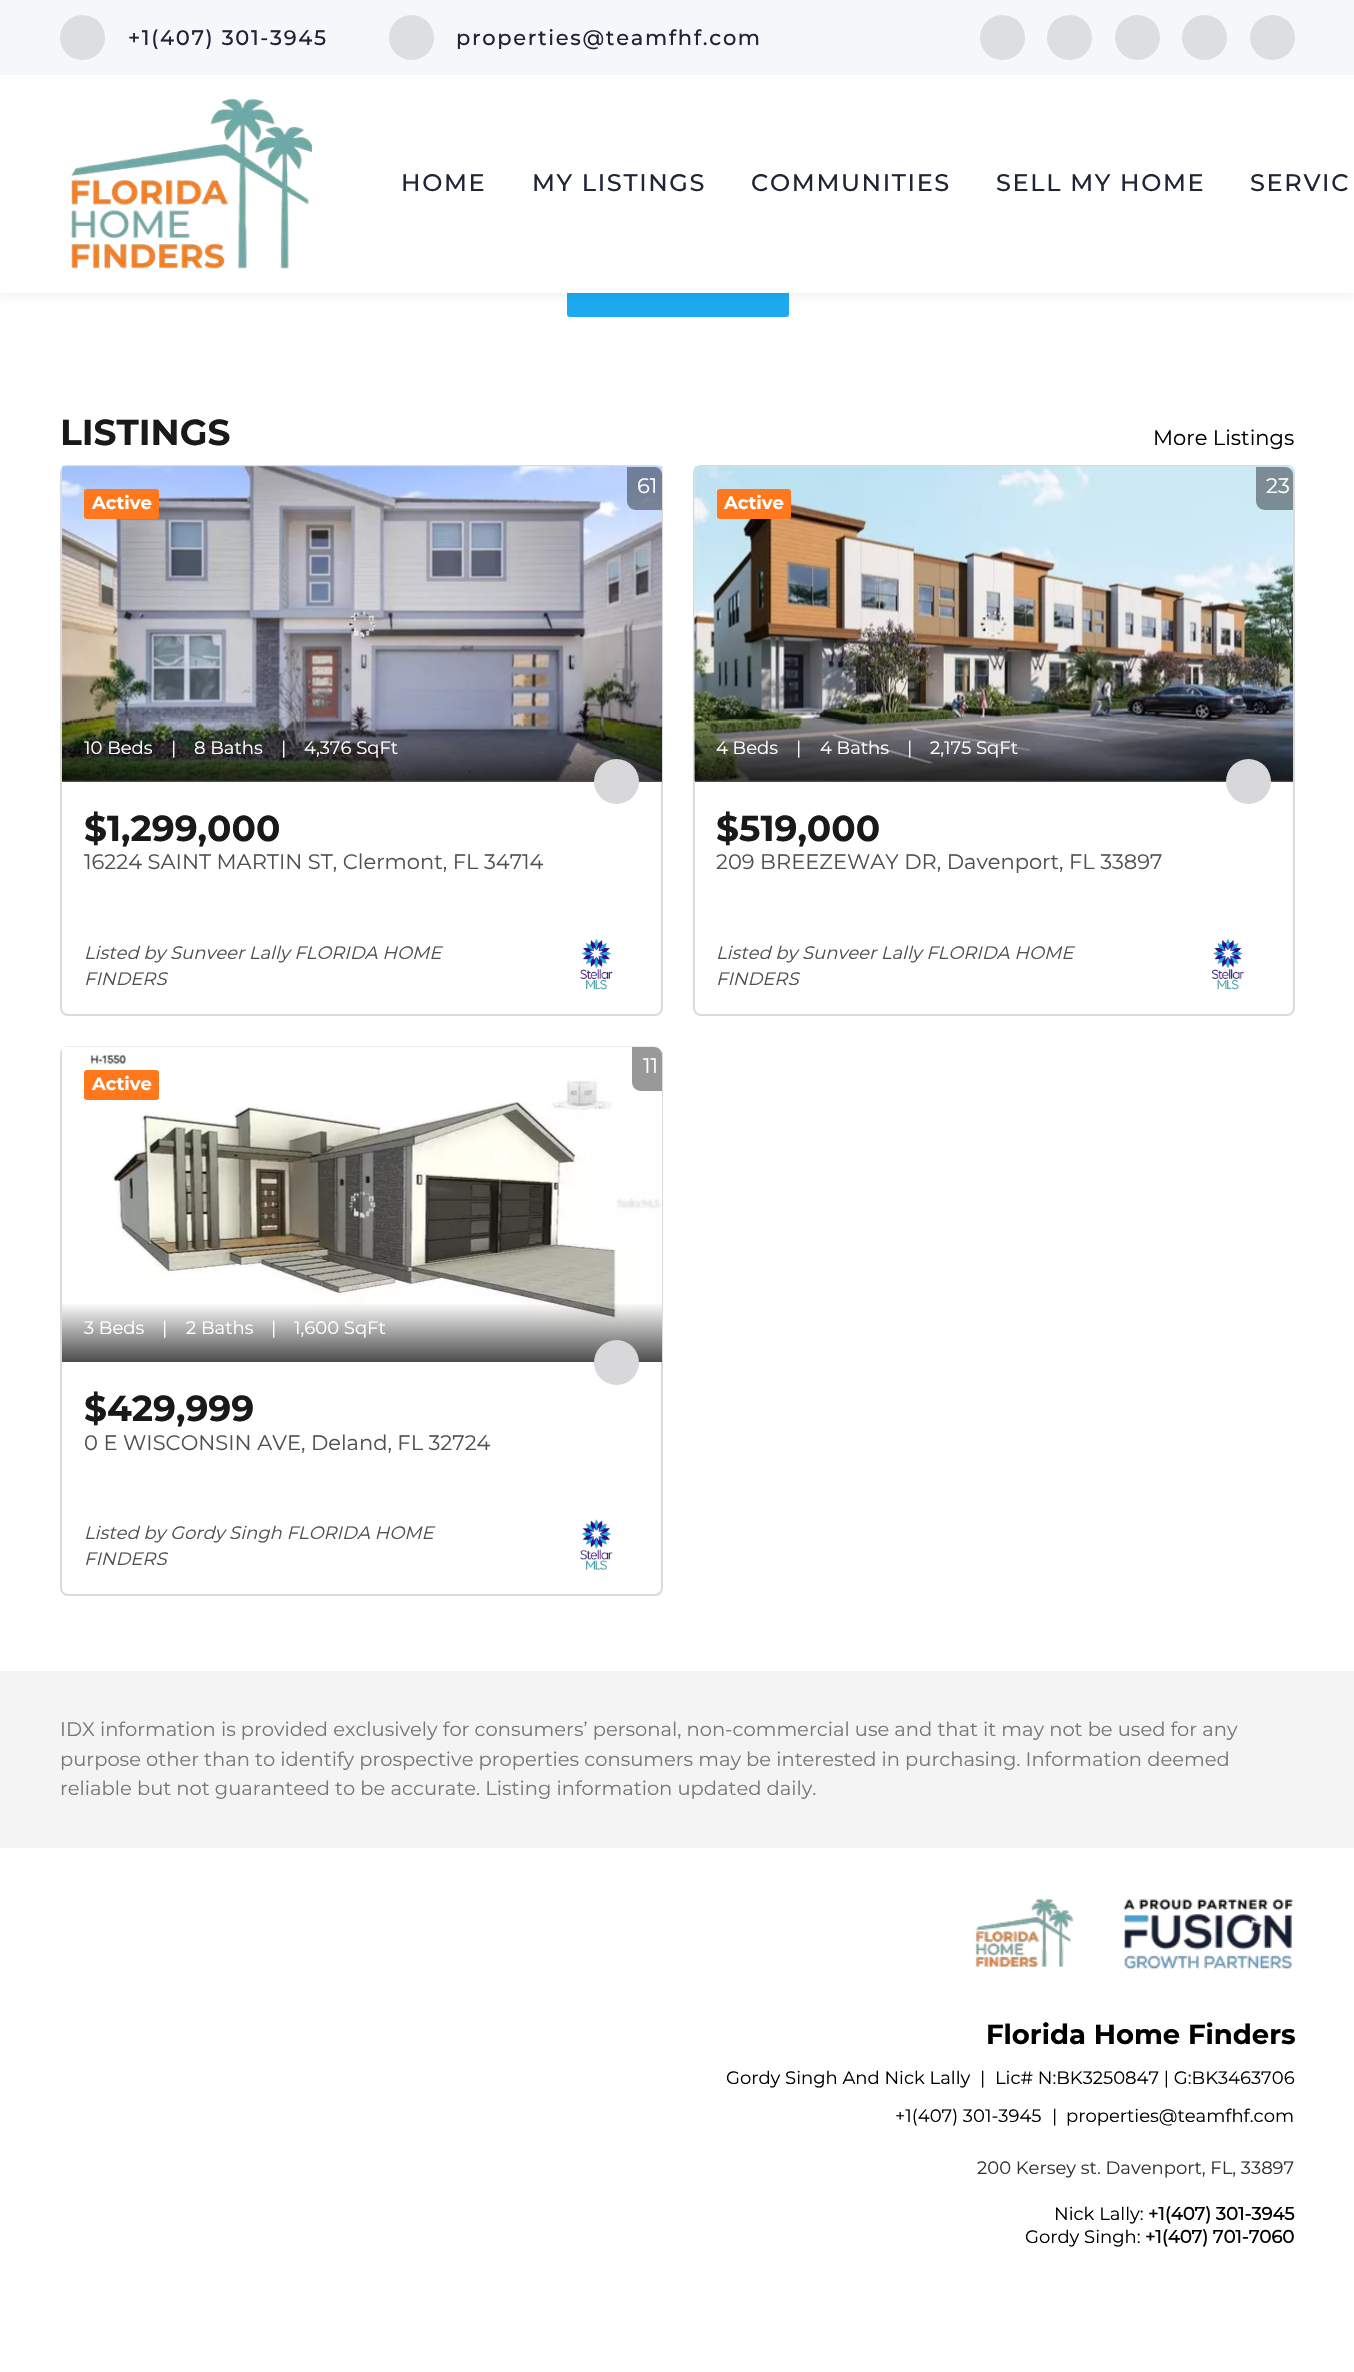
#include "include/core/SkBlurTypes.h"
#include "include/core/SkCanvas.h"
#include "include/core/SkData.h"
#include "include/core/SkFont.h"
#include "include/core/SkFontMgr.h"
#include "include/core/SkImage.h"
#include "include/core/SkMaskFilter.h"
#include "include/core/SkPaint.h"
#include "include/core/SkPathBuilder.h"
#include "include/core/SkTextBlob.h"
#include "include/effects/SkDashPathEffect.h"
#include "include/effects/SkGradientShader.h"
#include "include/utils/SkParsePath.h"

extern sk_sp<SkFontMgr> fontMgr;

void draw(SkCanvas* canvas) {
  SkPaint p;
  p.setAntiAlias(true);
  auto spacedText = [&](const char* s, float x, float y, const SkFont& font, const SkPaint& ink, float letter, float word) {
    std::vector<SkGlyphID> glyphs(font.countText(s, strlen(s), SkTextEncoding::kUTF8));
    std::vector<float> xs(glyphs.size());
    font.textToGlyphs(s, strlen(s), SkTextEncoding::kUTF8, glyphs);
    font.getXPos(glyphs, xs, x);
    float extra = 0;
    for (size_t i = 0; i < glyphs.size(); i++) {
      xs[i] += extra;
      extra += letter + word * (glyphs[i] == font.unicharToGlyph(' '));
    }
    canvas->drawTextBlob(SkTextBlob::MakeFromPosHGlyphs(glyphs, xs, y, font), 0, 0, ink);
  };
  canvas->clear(SK_ColorWHITE);
  p.setColor(SkColorSetRGB(29, 170, 240));
  canvas->drawRoundRect(SkRect::MakeLTRB(567, 257, 789, 317), 3, 3, p);
  p.setColor(SkColorSetARGB(13, 0, 0, 0));
  p.setMaskFilter(SkMaskFilter::MakeBlur(kNormal_SkBlurStyle, 4));
  canvas->drawRect(SkRect::MakeLTRB(0, 3, 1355, 296), p);
  p.setMaskFilter(nullptr);
  p.setColor(SkColorSetRGB(246, 247, 251));
  canvas->drawRect(SkRect::MakeLTRB(0, 0, 1354, 75), p);
  p.setColor(SkColorSetRGB(221, 222, 226));
  canvas->drawCircle(82.5f, 37.5f, 22.5f, p);
  canvas->drawCircle(411.5f, 37.5f, 22.5f, p);
  canvas->drawCircle(1002.5f, 37.5f, 22.5f, p);
  canvas->drawCircle(1069.5f, 37.5f, 22.5f, p);
  canvas->drawCircle(1137.5f, 37.5f, 22.5f, p);
  canvas->drawCircle(1204.5f, 37.5f, 22.5f, p);
  canvas->drawCircle(1272.5f, 37.5f, 22.5f, p);
  p.setColor(SK_ColorWHITE);
  canvas->drawRect(SkRect::MakeLTRB(0, 75, 1354, 293), p);
  canvas->drawImageRect(SkImages::DeferredFromEncodedData(SkData::MakeFromFileName("images/1.png")), SkRect::MakeLTRB(71, 98, 312, 269), SkSamplingOptions());
  p.setStyle(SkPaint::kStroke_Style);
  p.setStrokeWidth(2);
  p.setColor(SkColorSetRGB(218, 218, 218));
  canvas->drawRoundRect(SkRect::MakeLTRB(61, 466, 662, 1015), 7, 7, p);
  canvas->drawImageRect(SkImages::DeferredFromEncodedData(SkData::MakeFromFileName("images/2.png")), SkRect::MakeLTRB(62, 466, 662, 781), SkSamplingOptions());
  canvas->drawImageRect(SkImages::DeferredFromEncodedData(SkData::MakeFromFileName("images/3.png")), SkRect::MakeLTRB(349, 611, 376, 638), SkSamplingOptions());
  p.setStyle(SkPaint::kFill_Style);
  p.setColor(SkColorSetARGB(102, 0, 0, 0));
  canvas->drawPath(SkPathBuilder().moveTo(627, 467).lineTo(654, 467).cubicTo(658.5f, 467, 662, 470.5f, 662, 475).lineTo(662, 510).lineTo(636, 510).cubicTo(631, 510, 627, 506, 627, 501).close().detach(), p);
  {
    const SkColor colors[] = {SkColorSetARGB(0, 0, 0, 0), SkColorSetARGB(179, 0, 0, 0)};
    const float stops[] = {0, 1};
    const SkPoint ends[] = {{362, 722}, {362, 782}};
    p.setShader(SkGradientShader::MakeLinear(ends, colors, stops, 2, SkTileMode::kClamp));
    p.setAlpha(255);
  }
  canvas->drawRect(SkRect::MakeLTRB(62, 724, 662, 782), p);
  p.setShader(nullptr);
  p.setColor(SkColorSetRGB(255, 120, 29));
  canvas->drawRoundRect(SkRect::MakeLTRB(84, 489, 159, 519), 3, 3, p);
  p.setColor(SkColorSetRGB(216, 216, 219));
  canvas->drawCircle(616.5f, 781.5f, 22.5f, p);
  canvas->drawImageRect(SkImages::DeferredFromEncodedData(SkData::MakeFromFileName("images/4.png")), SkRect::MakeLTRB(580, 939, 613, 990), SkSamplingOptions());
  p.setStyle(SkPaint::kStroke_Style);
  p.setColor(SkColorSetRGB(218, 218, 218));
  canvas->drawRoundRect(SkRect::MakeLTRB(694, 466, 1294, 1015), 7, 7, p);
  canvas->drawImageRect(SkImages::DeferredFromEncodedData(SkData::MakeFromFileName("images/5.png")), SkRect::MakeLTRB(694, 466, 1293, 781), SkSamplingOptions());
  canvas->drawImageRect(SkImages::DeferredFromEncodedData(SkData::MakeFromFileName("images/6.png")), SkRect::MakeLTRB(980, 611, 1007, 638), SkSamplingOptions());
  p.setStyle(SkPaint::kFill_Style);
  p.setColor(SkColorSetRGB(123, 140, 148));
  canvas->drawPath(SkPathBuilder().moveTo(1256, 467).lineTo(1285, 467).cubicTo(1289.5f, 467, 1293, 470.5f, 1293, 475).lineTo(1293, 510).lineTo(1265, 510).cubicTo(1260, 510, 1256, 506, 1256, 501).close().detach(), p);
  {
    const SkColor colors[] = {SkColorSetARGB(0, 0, 0, 0), SkColorSetARGB(179, 0, 0, 0)};
    const float stops[] = {0, 1};
    const SkPoint ends[] = {{994, 722}, {994, 782}};
    p.setShader(SkGradientShader::MakeLinear(ends, colors, stops, 2, SkTileMode::kClamp));
    p.setAlpha(255);
  }
  canvas->drawRect(SkRect::MakeLTRB(695, 724, 1293, 782), p);
  p.setShader(nullptr);
  p.setColor(SkColorSetRGB(255, 120, 29));
  canvas->drawRoundRect(SkRect::MakeLTRB(717, 489, 791, 519), 3, 3, p);
  p.setColor(SkColorSetRGB(216, 216, 219));
  canvas->drawCircle(1248.5f, 781.5f, 22.5f, p);
  canvas->drawImageRect(SkImages::DeferredFromEncodedData(SkData::MakeFromFileName("images/7.png")), SkRect::MakeLTRB(1211, 939, 1244, 990), SkSamplingOptions());
  p.setStyle(SkPaint::kStroke_Style);
  p.setColor(SkColorSetRGB(218, 218, 218));
  canvas->drawRoundRect(SkRect::MakeLTRB(61, 1047, 662, 1595), 7, 7, p);
  canvas->drawImageRect(SkImages::DeferredFromEncodedData(SkData::MakeFromFileName("images/8.png")), SkRect::MakeLTRB(62, 1046, 662, 1362), SkSamplingOptions());
  canvas->drawImageRect(SkImages::DeferredFromEncodedData(SkData::MakeFromFileName("images/9.png")), SkRect::MakeLTRB(349, 1191, 376, 1219), SkSamplingOptions());
  p.setStyle(SkPaint::kFill_Style);
  p.setColor(SkColorSetRGB(153, 153, 153));
  canvas->drawPath(SkPathBuilder().moveTo(632, 1047).lineTo(654, 1047).cubicTo(658.5f, 1047, 662, 1050.5f, 662, 1055).lineTo(662, 1091).lineTo(641, 1091).cubicTo(636, 1091, 632, 1087, 632, 1082).close().detach(), p);
  {
    const SkColor colors[] = {SkColorSetARGB(0, 0, 0, 0), SkColorSetARGB(179, 0, 0, 0)};
    const float stops[] = {0, 1};
    const SkPoint ends[] = {{362, 1302}, {362, 1362}};
    p.setShader(SkGradientShader::MakeLinear(ends, colors, stops, 2, SkTileMode::kClamp));
    p.setAlpha(255);
  }
  canvas->drawRect(SkRect::MakeLTRB(62, 1304, 662, 1362), p);
  p.setShader(nullptr);
  p.setColor(SkColorSetRGB(255, 120, 29));
  canvas->drawRoundRect(SkRect::MakeLTRB(84, 1070, 159, 1100), 3, 3, p);
  p.setColor(SkColorSetRGB(216, 216, 219));
  canvas->drawCircle(616.5f, 1362.5f, 22.5f, p);
  canvas->drawImageRect(SkImages::DeferredFromEncodedData(SkData::MakeFromFileName("images/10.png")), SkRect::MakeLTRB(580, 1519, 613, 1570), SkSamplingOptions());
  p.setColor(SkColorSetRGB(244, 244, 244));
  canvas->drawRect(SkRect::MakeLTRB(0, 1671, 1354, 1848), p);
  canvas->drawImageRect(SkImages::DeferredFromEncodedData(SkData::MakeFromFileName("images/11.png")), SkRect::MakeLTRB(975, 1899, 1074, 1968), SkSamplingOptions());
  canvas->drawImageRect(SkImages::DeferredFromEncodedData(SkData::MakeFromFileName("images/12.png")), SkRect::MakeLTRB(1123, 1899, 1294, 1970), SkSamplingOptions());
  SkFont font1(fontMgr->matchFamilyStyle("Montserrat", SkFontStyle(500, SkFontStyle::kNormal_Width, SkFontStyle::kUpright_Slant)), 21);
  font1.setSubpixel(true);
  p.setColor(SkColorSetRGB(32, 36, 55));
  spacedText("+1(407) 301-3945", 128, 45, font1, p, 1.65f, 0);
  spacedText("properties@teamfhf.com", 456, 45, font1, p, 1.65f, 0);
  SkFont font2(fontMgr->matchFamilyStyle("Montserrat", SkFontStyle(500, SkFontStyle::kNormal_Width, SkFontStyle::kUpright_Slant)), 24);
  font2.setSubpixel(true);
  spacedText("HOME", 401, 191, font2, p, 1.65f, 0);
  spacedText("MY LISTINGS", 532, 191, font2, p, 1.65f, 0);
  spacedText("COMMUNITIES", 751, 191, font2, p, 1.65f, 0);
  spacedText("SELL MY HOME", 996, 191, font2, p, 1.65f, 0);
  spacedText("SERVIC", 1250, 191, font2, p, 1.65f, 0);
  SkFont font3(fontMgr->matchFamilyStyle("Montserrat", SkFontStyle::Bold()), 36);
  font3.setSubpixel(true);
  p.setColor(SkColorSetRGB(25, 25, 25));
  canvas->drawString("LISTINGS", 60, 445, font3, p);
  SkFont font4(fontMgr->matchFamilyStyle("Montserrat", SkFontStyle::Normal()), 21);
  font4.setSubpixel(true);
  p.setColor(SK_ColorBLACK);
  canvas->drawString("More Listings", 1153, 445, font4, p);
  p.setColor(SK_ColorWHITE);
  canvas->drawString("61", 637, 493, font4, p);
  SkFont font5(fontMgr->matchFamilyStyle("Montserrat", SkFontStyle::Normal()), 18);
  font5.setSubpixel(true);
  canvas->drawString("10 Beds", 84, 754, font5, p);
  canvas->drawString("|", 171, 754, font5, p);
  canvas->drawString("8 Baths", 194, 754, font5, p);
  canvas->drawString("|", 281, 754, font5, p);
  canvas->drawString("4,376 SqFt", 304, 754, font5, p);
  SkFont font6(fontMgr->matchFamilyStyle("Montserrat", SkFontStyle::Bold()), 18);
  font6.setSubpixel(true);
  canvas->drawString("Active", 92, 509, font6, p);
  p.setColor(SkColorSetRGB(25, 25, 25));
  canvas->drawString("$1,299,000", 84, 841, font3, p);
  p.setColor(SkColorSetRGB(80, 80, 80));
  canvas->drawString("16224 SAINT MARTIN ST, Clermont, FL 34714", 84, 869, font4, p);
  SkFont font7(fontMgr->matchFamilyStyle("Montserrat", SkFontStyle::Italic()), 18);
  font7.setSubpixel(true);
  canvas->drawString("Listed by Sunveer Lally FLORIDA HOME", 84, 959, font7, p);
  canvas->drawString("FINDERS", 84, 985, font7, p);
  p.setColor(SK_ColorWHITE);
  canvas->drawString("23", 1266, 493, font4, p);
  canvas->drawString("4 Beds", 716, 754, font5, p);
  canvas->drawString("|", 796, 754, font5, p);
  canvas->drawString("4 Baths", 820, 754, font5, p);
  canvas->drawString("|", 907, 754, font5, p);
  canvas->drawString("2,175 SqFt", 930, 754, font5, p);
  canvas->drawString("Active", 724, 509, font6, p);
  p.setColor(SkColorSetRGB(25, 25, 25));
  canvas->drawString("$519,000", 716, 841, font3, p);
  p.setColor(SkColorSetRGB(80, 80, 80));
  canvas->drawString("209 BREEZEWAY DR, Davenport, FL 33897", 716, 869, font4, p);
  canvas->drawString("Listed by Sunveer Lally FLORIDA HOME", 716, 959, font7, p);
  canvas->drawString("FINDERS", 716, 985, font7, p);
  p.setColor(SK_ColorWHITE);
  canvas->drawString("11", 643, 1073, font4, p);
  canvas->drawString("3 Beds", 84, 1334, font5, p);
  canvas->drawString("|", 162, 1334, font5, p);
  canvas->drawString("2 Baths", 186, 1334, font5, p);
  canvas->drawString("|", 271, 1334, font5, p);
  canvas->drawString("1,600 SqFt", 294, 1334, font5, p);
  canvas->drawString("Active", 92, 1090, font6, p);
  p.setColor(SkColorSetRGB(25, 25, 25));
  canvas->drawString("$429,999", 84, 1421, font3, p);
  p.setColor(SkColorSetRGB(80, 80, 80));
  canvas->drawString("0 E WISCONSIN AVE, Deland, FL 32724", 84, 1450, font4, p);
  canvas->drawString("Listed by Gordy Singh FLORIDA HOME", 84, 1539, font7, p);
  canvas->drawString("FINDERS", 84, 1565, font7, p);
  SkFont font8(fontMgr->matchFamilyStyle("Montserrat", SkFontStyle::Normal()), 19.5f);
  font8.setSubpixel(true);
  p.setColor(SkColorSetRGB(120, 120, 120));
  canvas->drawString("IDX information is provided exclusively for consumers’ personal, non-commercial use and that it may not be used for any", 60, 1736, font8, p);
  canvas->drawString("purpose other than to identify prospective properties consumers may be interested in purchasing. Information deemed", 60, 1766, font8, p);
  canvas->drawString("reliable but not guaranteed to be accurate. Listing information updated daily.", 60, 1795, font8, p);
  SkFont font9(fontMgr->matchFamilyStyle("Montserrat", SkFontStyle::Bold()), 27.5f);
  font9.setSubpixel(true);
  p.setColor(SK_ColorBLACK);
  canvas->drawString("Florida Home Finders", 986, 2044, font9, p);
  canvas->drawString("Gordy Singh And Nick Lally", 726, 2084, font5, p);
  canvas->drawString("|", 980, 2084, font5, p);
  canvas->drawString("Lic# N:BK3250847 | G:BK3463706", 995, 2084, font5, p);
  canvas->drawString("+1(407) 301-3945", 895, 2122, font5, p);
  canvas->drawString("|", 1052, 2122, font5, p);
  canvas->drawString("properties@teamfhf.com", 1066, 2122, font5, p);
  p.setColor(SkColorSetRGB(51, 51, 51));
  canvas->drawString("200 Kersey st. Davenport, FL, 33897", 977, 2174, font5, p);
  p.setColor(SK_ColorBLACK);
  canvas->drawString("Nick Lally:", 1054, 2220, font5, p);
  SkFont font10(fontMgr->matchFamilyStyle("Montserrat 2", SkFontStyle::Bold()), 18);
  font10.setSubpixel(true);
  canvas->drawString("+1(407) 301-3945", 1148, 2220, font10, p);
  canvas->drawString("Gordy Singh:", 1025, 2243, font5, p);
  canvas->drawString("+1(407) 701-7060", 1145, 2243, font10, p);
}
